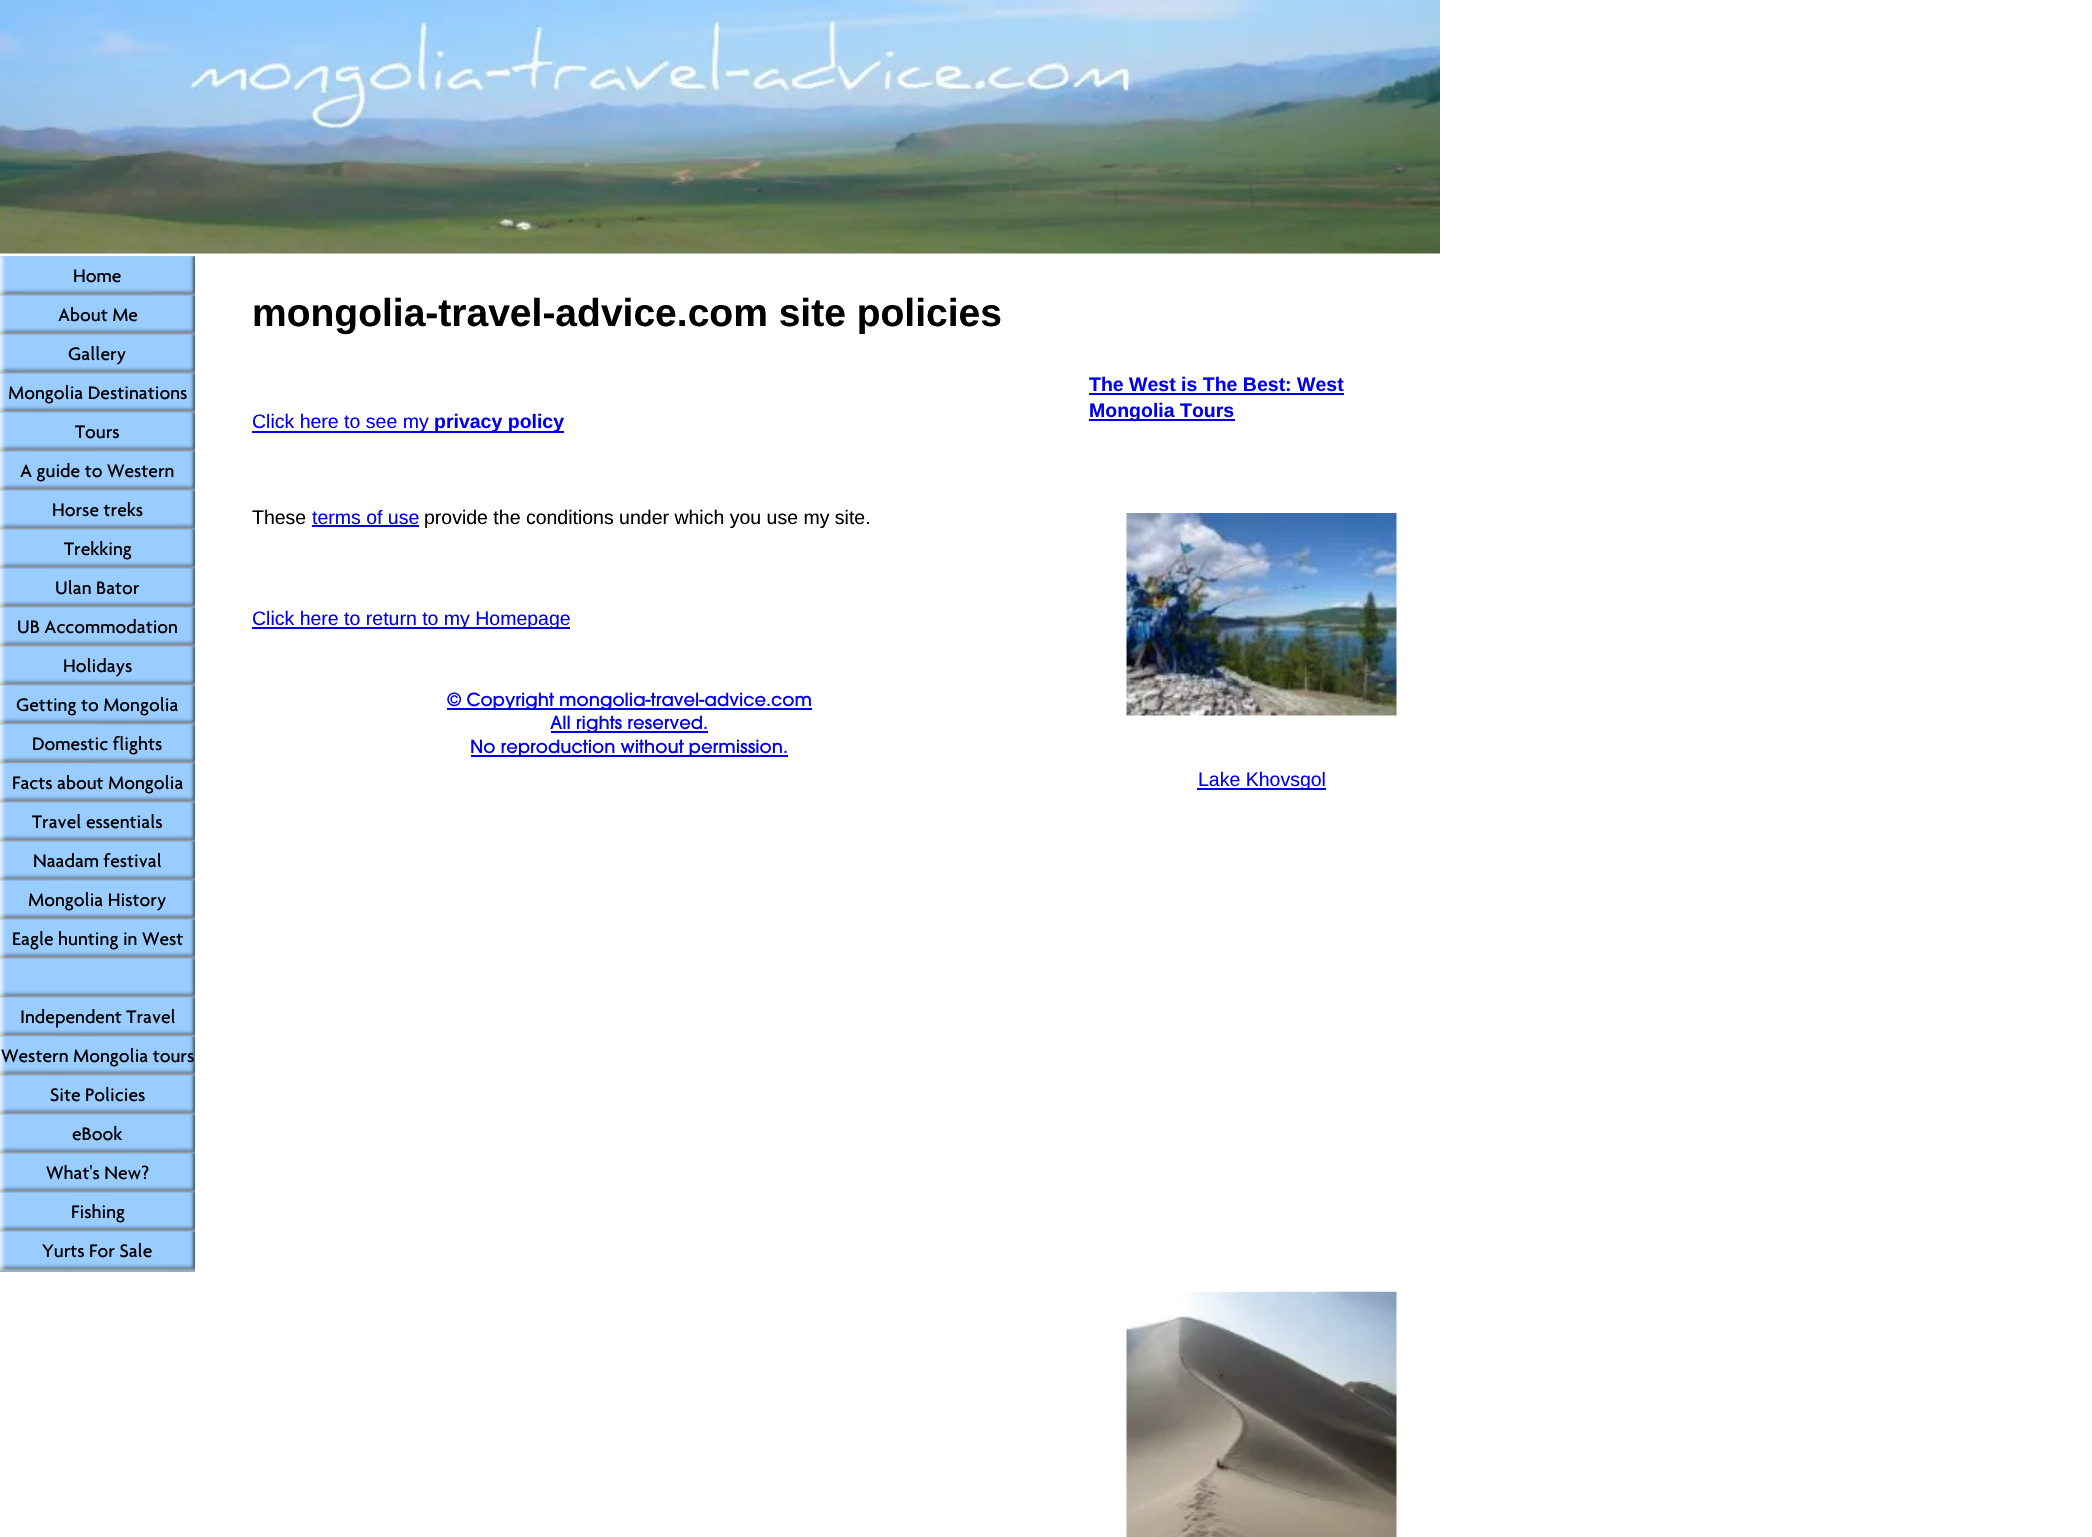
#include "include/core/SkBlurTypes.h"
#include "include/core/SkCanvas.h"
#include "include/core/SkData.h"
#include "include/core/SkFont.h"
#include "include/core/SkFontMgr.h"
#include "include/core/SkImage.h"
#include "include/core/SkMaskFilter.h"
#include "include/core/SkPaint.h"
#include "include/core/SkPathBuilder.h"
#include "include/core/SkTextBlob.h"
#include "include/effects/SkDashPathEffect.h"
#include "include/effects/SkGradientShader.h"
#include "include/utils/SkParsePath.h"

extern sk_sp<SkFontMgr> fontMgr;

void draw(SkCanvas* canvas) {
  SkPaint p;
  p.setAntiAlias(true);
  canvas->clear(SK_ColorWHITE);
  canvas->drawImageRect(SkImages::DeferredFromEncodedData(SkData::MakeFromFileName("images/1.png")), SkRect::MakeLTRB(0, 0, 1440, 254), SkSamplingOptions());
  canvas->drawImageRect(SkImages::DeferredFromEncodedData(SkData::MakeFromFileName("images/2.png")), SkRect::MakeLTRB(0, 256, 195, 1272), SkSamplingOptions());
  canvas->drawImageRect(SkImages::DeferredFromEncodedData(SkData::MakeFromFileName("images/3.png")), SkRect::MakeLTRB(0, 256, 195, 296), SkSamplingOptions());
  canvas->drawImageRect(SkImages::DeferredFromEncodedData(SkData::MakeFromFileName("images/4.png")), SkRect::MakeLTRB(0, 295, 195, 335), SkSamplingOptions());
  canvas->drawImageRect(SkImages::DeferredFromEncodedData(SkData::MakeFromFileName("images/5.png")), SkRect::MakeLTRB(0, 334, 195, 374), SkSamplingOptions());
  canvas->drawImageRect(SkImages::DeferredFromEncodedData(SkData::MakeFromFileName("images/6.png")), SkRect::MakeLTRB(0, 373, 195, 413), SkSamplingOptions());
  canvas->drawImageRect(SkImages::DeferredFromEncodedData(SkData::MakeFromFileName("images/7.png")), SkRect::MakeLTRB(0, 412, 195, 452), SkSamplingOptions());
  canvas->drawImageRect(SkImages::DeferredFromEncodedData(SkData::MakeFromFileName("images/8.png")), SkRect::MakeLTRB(0, 451, 195, 491), SkSamplingOptions());
  canvas->drawImageRect(SkImages::DeferredFromEncodedData(SkData::MakeFromFileName("images/9.png")), SkRect::MakeLTRB(0, 490, 195, 530), SkSamplingOptions());
  canvas->drawImageRect(SkImages::DeferredFromEncodedData(SkData::MakeFromFileName("images/10.png")), SkRect::MakeLTRB(0, 529, 195, 569), SkSamplingOptions());
  canvas->drawImageRect(SkImages::DeferredFromEncodedData(SkData::MakeFromFileName("images/11.png")), SkRect::MakeLTRB(0, 568, 195, 608), SkSamplingOptions());
  canvas->drawImageRect(SkImages::DeferredFromEncodedData(SkData::MakeFromFileName("images/12.png")), SkRect::MakeLTRB(0, 607, 195, 647), SkSamplingOptions());
  canvas->drawImageRect(SkImages::DeferredFromEncodedData(SkData::MakeFromFileName("images/13.png")), SkRect::MakeLTRB(0, 646, 195, 686), SkSamplingOptions());
  canvas->drawImageRect(SkImages::DeferredFromEncodedData(SkData::MakeFromFileName("images/14.png")), SkRect::MakeLTRB(0, 685, 195, 725), SkSamplingOptions());
  canvas->drawImageRect(SkImages::DeferredFromEncodedData(SkData::MakeFromFileName("images/15.png")), SkRect::MakeLTRB(0, 724, 195, 764), SkSamplingOptions());
  canvas->drawImageRect(SkImages::DeferredFromEncodedData(SkData::MakeFromFileName("images/16.png")), SkRect::MakeLTRB(0, 763, 195, 803), SkSamplingOptions());
  canvas->drawImageRect(SkImages::DeferredFromEncodedData(SkData::MakeFromFileName("images/17.png")), SkRect::MakeLTRB(0, 802, 195, 842), SkSamplingOptions());
  canvas->drawImageRect(SkImages::DeferredFromEncodedData(SkData::MakeFromFileName("images/18.png")), SkRect::MakeLTRB(0, 841, 195, 881), SkSamplingOptions());
  canvas->drawImageRect(SkImages::DeferredFromEncodedData(SkData::MakeFromFileName("images/19.png")), SkRect::MakeLTRB(0, 880, 195, 920), SkSamplingOptions());
  canvas->drawImageRect(SkImages::DeferredFromEncodedData(SkData::MakeFromFileName("images/20.png")), SkRect::MakeLTRB(0, 919, 195, 959), SkSamplingOptions());
  canvas->drawImageRect(SkImages::DeferredFromEncodedData(SkData::MakeFromFileName("images/21.png")), SkRect::MakeLTRB(0, 958, 195, 998), SkSamplingOptions());
  canvas->drawImageRect(SkImages::DeferredFromEncodedData(SkData::MakeFromFileName("images/22.png")), SkRect::MakeLTRB(0, 997, 195, 1037), SkSamplingOptions());
  canvas->drawImageRect(SkImages::DeferredFromEncodedData(SkData::MakeFromFileName("images/23.png")), SkRect::MakeLTRB(0, 1036, 195, 1076), SkSamplingOptions());
  canvas->drawImageRect(SkImages::DeferredFromEncodedData(SkData::MakeFromFileName("images/24.png")), SkRect::MakeLTRB(0, 1075, 195, 1115), SkSamplingOptions());
  canvas->drawImageRect(SkImages::DeferredFromEncodedData(SkData::MakeFromFileName("images/25.png")), SkRect::MakeLTRB(0, 1114, 195, 1154), SkSamplingOptions());
  canvas->drawImageRect(SkImages::DeferredFromEncodedData(SkData::MakeFromFileName("images/26.png")), SkRect::MakeLTRB(0, 1153, 195, 1193), SkSamplingOptions());
  canvas->drawImageRect(SkImages::DeferredFromEncodedData(SkData::MakeFromFileName("images/27.png")), SkRect::MakeLTRB(0, 1192, 195, 1232), SkSamplingOptions());
  canvas->drawImageRect(SkImages::DeferredFromEncodedData(SkData::MakeFromFileName("images/28.png")), SkRect::MakeLTRB(0, 1231, 195, 1271), SkSamplingOptions());
  p.setColor(SkColorSetRGB(0, 0, 238));
  canvas->drawRect(SkRect::MakeLTRB(252, 431, 564, 433), p);
  canvas->drawRect(SkRect::MakeLTRB(312, 525, 419, 527), p);
  canvas->drawRect(SkRect::MakeLTRB(252, 627, 570, 629), p);
  canvas->drawRect(SkRect::MakeLTRB(447, 708, 812, 710), p);
  canvas->drawRect(SkRect::MakeLTRB(551, 731, 708, 733), p);
  canvas->drawRect(SkRect::MakeLTRB(471, 755, 788, 757), p);
  canvas->drawRect(SkRect::MakeLTRB(1089, 393, 1344, 395), p);
  canvas->drawRect(SkRect::MakeLTRB(1089, 419, 1235, 421), p);
  canvas->drawImageRect(SkImages::DeferredFromEncodedData(SkData::MakeFromFileName("images/29.png")), SkRect::MakeLTRB(1126, 513, 1397, 716), SkSamplingOptions());
  canvas->drawRect(SkRect::MakeLTRB(1197, 788, 1326, 790), p);
  canvas->drawImageRect(SkImages::DeferredFromEncodedData(SkData::MakeFromFileName("images/30.png")), SkRect::MakeLTRB(1126, 1291, 1397, 1537), SkSamplingOptions());
  SkFont font1(fontMgr->matchFamilyStyle("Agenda", SkFontStyle::Normal()), 19.5f);
  font1.setSubpixel(true);
  p.setColor(SK_ColorBLACK);
  canvas->drawString("Home", 73, 282, font1, p);
  canvas->drawString("About Me", 58, 321, font1, p);
  canvas->drawString("Gallery", 68, 360, font1, p);
  canvas->drawString("Mongolia Destinations", 8, 399, font1, p);
  canvas->drawString("Tours", 75, 438, font1, p);
  canvas->drawString("A guide to Western", 20, 477, font1, p);
  canvas->drawString("Horse treks", 52, 516, font1, p);
  canvas->drawString("Trekking", 64, 555, font1, p);
  canvas->drawString("Ulan Bator", 55, 594, font1, p);
  canvas->drawString("UB Accommodation", 17, 633, font1, p);
  canvas->drawString("Holidays", 63, 672, font1, p);
  canvas->drawString("Getting to Mongolia", 16, 711, font1, p);
  canvas->drawString("Domestic flights", 32, 750, font1, p);
  canvas->drawString("Facts about Mongolia", 12, 789, font1, p);
  canvas->drawString("Travel essentials", 32, 828, font1, p);
  canvas->drawString("Naadam festival", 33, 867, font1, p);
  canvas->drawString("Mongolia History", 28, 906, font1, p);
  canvas->drawString("Eagle hunting in West", 12, 945, font1, p);
  canvas->drawString("Independent Travel", 20, 1023, font1, p);
  canvas->drawString("Western Mongolia tours", 1, 1062, font1, p);
  canvas->drawString("Site Policies", 50, 1101, font1, p);
  canvas->drawString("eBook", 72, 1140, font1, p);
  canvas->drawString("What's New?", 46, 1179, font1, p);
  canvas->drawString("Fishing", 71, 1218, font1, p);
  canvas->drawString("Yurts For Sale", 42, 1257, font1, p);
  SkFont font2(fontMgr->matchFamilyStyle("Liberation Sans", SkFontStyle::Bold()), 39);
  font2.setSubpixel(true);
  canvas->drawString("mongolia-travel-advice.com site policies", 252, 326, font2, p);
  SkFont font3(fontMgr->matchFamilyStyle("Liberation Sans", SkFontStyle::Normal()), 19.5f);
  font3.setSubpixel(true);
  p.setColor(SkColorSetRGB(0, 0, 238));
  canvas->drawString("Click here to see my", 252, 428, font3, p);
  SkFont font4(fontMgr->matchFamilyStyle("Liberation Sans", SkFontStyle::Bold()), 19.5f);
  font4.setSubpixel(true);
  canvas->drawString("privacy policy", 434, 428, font4, p);
  p.setColor(SK_ColorBLACK);
  canvas->drawString("These", 252, 524, font3, p);
  p.setColor(SkColorSetRGB(0, 0, 238));
  canvas->drawString("terms of use", 312, 524, font3, p);
  p.setColor(SK_ColorBLACK);
  canvas->drawString("provide the conditions under which you use my site.", 424, 524, font3, p);
  p.setColor(SkColorSetRGB(0, 0, 238));
  canvas->drawString("Click here to return to my Homepage", 252, 625, font3, p);
  SkFont font5(fontMgr->matchFamilyStyle("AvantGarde", SkFontStyle::Normal()), 18);
  font5.setSubpixel(true);
  canvas->drawString("© Copyright mongolia-travel-advice.com", 447, 706, font5, p);
  canvas->drawString("All rights reserved.", 550, 729, font5, p);
  canvas->drawString("No reproduction without permission.", 470, 753, font5, p);
  canvas->drawString("The West is The Best: West", 1089, 391, font4, p);
  canvas->drawString("Mongolia Tours", 1089, 417, font4, p);
  canvas->drawString("Lake Khovsgol", 1198, 786, font3, p);
}
